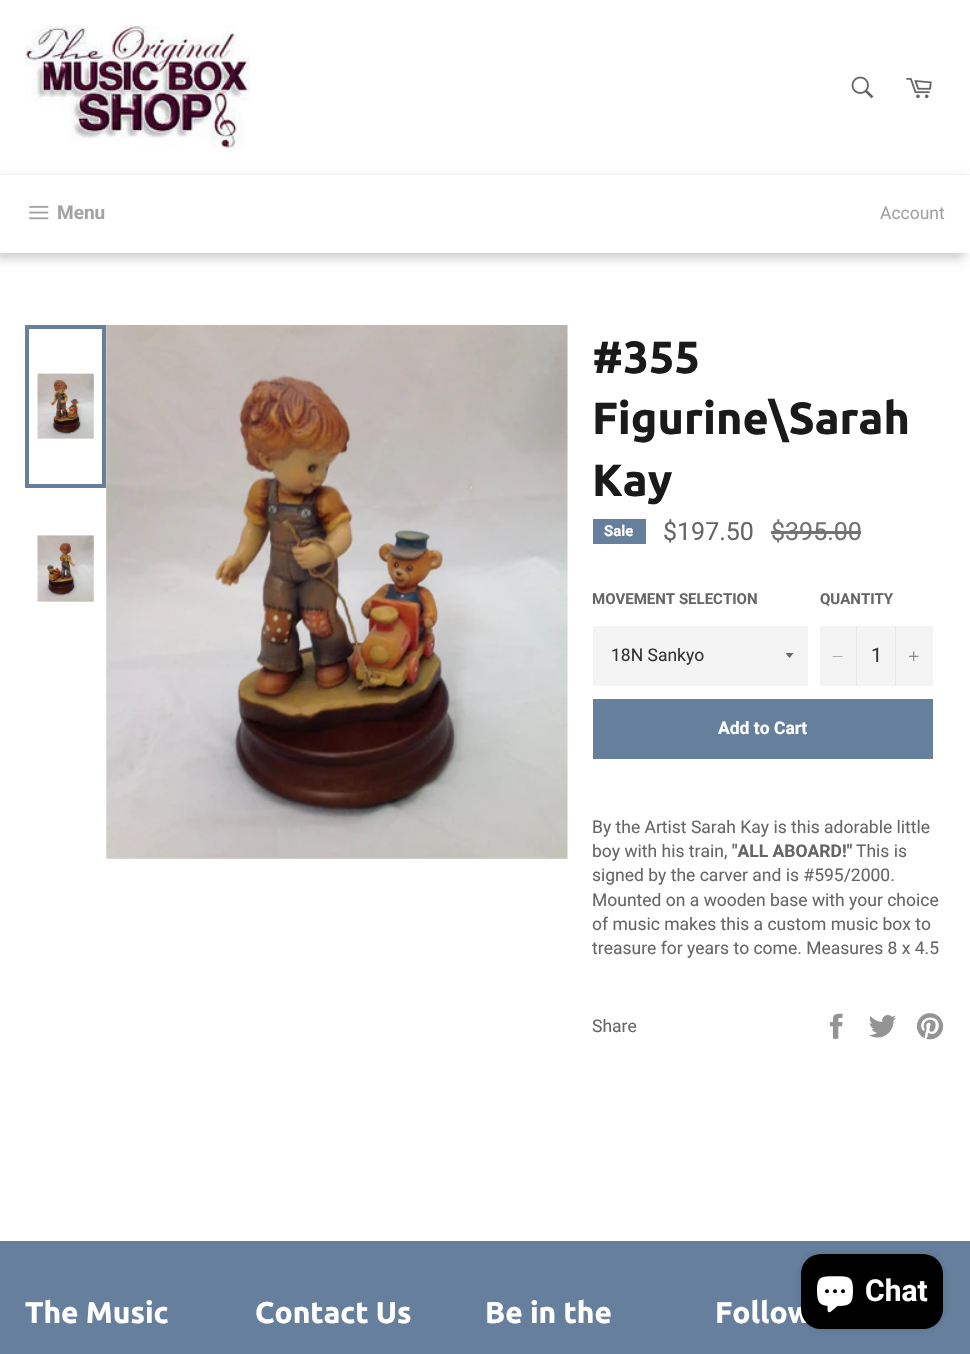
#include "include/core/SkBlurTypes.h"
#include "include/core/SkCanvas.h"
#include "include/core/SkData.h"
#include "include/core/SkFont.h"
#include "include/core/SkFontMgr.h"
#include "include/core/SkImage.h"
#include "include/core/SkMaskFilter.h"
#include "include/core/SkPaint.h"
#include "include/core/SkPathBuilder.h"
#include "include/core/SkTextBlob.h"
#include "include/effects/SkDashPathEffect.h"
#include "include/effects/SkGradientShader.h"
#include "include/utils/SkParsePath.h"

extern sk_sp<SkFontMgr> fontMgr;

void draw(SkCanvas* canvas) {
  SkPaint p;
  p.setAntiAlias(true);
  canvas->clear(SK_ColorWHITE);
  canvas->drawImageRect(SkImages::DeferredFromEncodedData(SkData::MakeFromFileName("images/1.png")), SkRect::MakeLTRB(25, 25, 250, 149), SkSamplingOptions());
  canvas->drawImageRect(SkImages::DeferredFromEncodedData(SkData::MakeFromFileName("images/2.png")), SkRect::MakeLTRB(851, 76, 874, 99), SkSamplingOptions());
  canvas->drawImageRect(SkImages::DeferredFromEncodedData(SkData::MakeFromFileName("images/3.png")), SkRect::MakeLTRB(906, 78, 932, 99), SkSamplingOptions());
  p.setColor(SkColorSetARGB(51, 0, 0, 0));
  p.setMaskFilter(SkMaskFilter::MakeBlur(kNormal_SkBlurStyle, 5));
  canvas->drawRect(SkRect::MakeLTRB(-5, 179, 965, 258), p);
  p.setMaskFilter(nullptr);
  p.setColor(SK_ColorWHITE);
  canvas->drawRect(SkRect::MakeLTRB(0, 175, 970, 253), p);
  p.setColor(SkColorSetRGB(242, 242, 242));
  canvas->drawRect(SkRect::MakeLTRB(0, 174, 970, 175), p);
  canvas->drawImageRect(SkImages::DeferredFromEncodedData(SkData::MakeFromFileName("images/4.png")), SkRect::MakeLTRB(29, 205, 49, 220), SkSamplingOptions());
  canvas->drawImageRect(SkImages::DeferredFromEncodedData(SkData::MakeFromFileName("images/5.png")), SkRect::MakeLTRB(37, 373, 94, 439), SkSamplingOptions());
  p.setStyle(SkPaint::kStroke_Style);
  p.setStrokeWidth(4);
  p.setColor(SkColorSetRGB(102, 127, 157));
  canvas->drawRect(SkRect::MakeLTRB(27, 327, 104, 486), p);
  canvas->drawImageRect(SkImages::DeferredFromEncodedData(SkData::MakeFromFileName("images/6.png")), SkRect::MakeLTRB(37, 535, 94, 602), SkSamplingOptions());
  canvas->drawImageRect(SkImages::DeferredFromEncodedData(SkData::MakeFromFileName("images/7.png")), SkRect::MakeLTRB(106, 325, 568, 859), SkSamplingOptions());
  p.setStyle(SkPaint::kFill_Style);
  canvas->drawRect(SkRect::MakeLTRB(593, 519, 646, 544), p);
  p.setColor(SkColorSetRGB(115, 115, 115));
  canvas->drawRect(SkRect::MakeLTRB(771, 531, 861, 534), p);
  p.setColor(SkColorSetRGB(244, 244, 244));
  canvas->drawRect(SkRect::MakeLTRB(593, 626, 808, 686), p);
  canvas->save();
  canvas->clipRect(SkRect::MakeLTRB(785, 653, 795, 659));
  p.setColor(SkColorSetRGB(102, 102, 102));
  canvas->drawPath(SkPathBuilder().moveTo(785, 652.5f).lineTo(789.5f, 658).lineTo(794, 652.5f).close().detach(), p);
  canvas->restore();
  p.setColor(SkColorSetRGB(244, 244, 244));
  canvas->drawRect(SkRect::MakeLTRB(820, 626, 933, 686), p);
  p.setColor(SkColorSetRGB(231, 231, 231));
  canvas->drawRect(SkRect::MakeLTRB(856, 626, 857, 686), p);
  p.setColor(SkColorSetRGB(102, 102, 102));
  canvas->drawPath(SkPathBuilder(SkPathFillType::kEvenOdd).moveTo(842.5f, 656).lineTo(842.5f, 656.5f).lineTo(832.5f, 656.5f).lineTo(832.5f, 656).close().detach(), p);
  p.setColor(SkColorSetRGB(231, 231, 231));
  canvas->drawRect(SkRect::MakeLTRB(895, 626, 896, 686), p);
  canvas->drawImageRect(SkImages::DeferredFromEncodedData(SkData::MakeFromFileName("images/8.png")), SkRect::MakeLTRB(909, 651, 919, 661), SkSamplingOptions());
  p.setColor(SkColorSetRGB(102, 127, 157));
  canvas->drawRect(SkRect::MakeLTRB(593, 699, 933, 759), p);
  canvas->drawImageRect(SkImages::DeferredFromEncodedData(SkData::MakeFromFileName("images/9.png")), SkRect::MakeLTRB(830, 1013, 843, 1039), SkSamplingOptions());
  canvas->drawImageRect(SkImages::DeferredFromEncodedData(SkData::MakeFromFileName("images/10.png")), SkRect::MakeLTRB(869, 1015, 897, 1038), SkSamplingOptions());
  canvas->drawImageRect(SkImages::DeferredFromEncodedData(SkData::MakeFromFileName("images/11.png")), SkRect::MakeLTRB(916, 1013, 944, 1040), SkSamplingOptions());
  canvas->drawRect(SkRect::MakeLTRB(0, 1241, 970, 1354), p);
  p.setColor(SkColorSetARGB(38, 0, 0, 0));
  p.setMaskFilter(SkMaskFilter::MakeBlur(kNormal_SkBlurStyle, 3));
  canvas->drawRoundRect(SkRect::MakeLTRB(801, 1254, 943, 1329), 20, 20, p);
  p.setMaskFilter(nullptr);
  SkFont font1(fontMgr->matchFamilyStyle("Roboto", SkFontStyle::Bold()), 19);
  font1.setSubpixel(true);
  p.setColor(SkColorSetRGB(163, 163, 163));
  canvas->drawString("Menu", 57, 219, font1, p);
  SkFont font2(fontMgr->matchFamilyStyle("Roboto", SkFontStyle::Normal()), 17.5f);
  font2.setSubpixel(true);
  canvas->drawString("Account", 880, 219, font2, p);
  SkFont font3(fontMgr->matchFamilyStyle("Ubuntu", SkFontStyle::Bold()), 45);
  font3.setSubpixel(true);
  p.setColor(SkColorSetRGB(26, 26, 26));
  canvas->drawString("#355", 592, 373, font3, p);
  canvas->drawString("Figurine\\Sarah", 592, 434, font3, p);
  canvas->drawString("Kay", 592, 496, font3, p);
  SkFont font4(fontMgr->matchFamilyStyle("Roboto", SkFontStyle::Bold()), 15);
  font4.setSubpixel(true);
  p.setColor(SK_ColorWHITE);
  canvas->drawString("Sale", 604, 536, font4, p);
  SkFont font5(fontMgr->matchFamilyStyle("Roboto", SkFontStyle::Normal()), 25);
  font5.setSubpixel(true);
  p.setColor(SkColorSetRGB(102, 102, 102));
  canvas->drawString("$197.50", 663, 540, font5, p);
  p.setColor(SkColorSetRGB(115, 115, 115));
  canvas->drawString("$395.00", 771, 540, font5, p);
  p.setColor(SkColorSetRGB(102, 102, 102));
  canvas->drawString("MOVEMENT SELECTION", 592, 604, font4, p);
  p.setColor(SkColorSetRGB(51, 51, 51));
  canvas->drawString("18N Sankyo", 611, 661, font2, p);
  p.setColor(SkColorSetRGB(102, 102, 102));
  canvas->drawString("QUANTITY", 820, 604, font4, p);
  SkFont font6(fontMgr->matchFamilyStyle("Roboto", SkFontStyle::Normal()), 20);
  font6.setSubpixel(true);
  p.setColor(SkColorSetRGB(51, 51, 51));
  canvas->drawString("1", 871, 662, font6, p);
  SkFont font7(fontMgr->matchFamilyStyle("Roboto", SkFontStyle::Bold()), 17.5f);
  font7.setSubpixel(true);
  p.setColor(SK_ColorWHITE);
  canvas->drawString("Add to Cart", 718, 734, font7, p);
  p.setColor(SkColorSetRGB(102, 102, 102));
  canvas->drawString("By the Artist Sarah Kay is this adorable little", 592, 833, font2, p);
  canvas->drawString("boy with his train,", 592, 857, font2, p);
  canvas->drawString("\"ALL ABOARD!\"", 732, 857, font7, p);
  canvas->drawString("This is", 856, 857, font2, p);
  canvas->drawString("signed by the carver and is #595/2000.", 592, 881, font2, p);
  canvas->drawString("Mounted on a wooden base with your choice", 592, 906, font2, p);
  canvas->drawString("of music makes this a custom music box to", 592, 930, font2, p);
  canvas->drawString("treasure for years to come. Measures 8 x 4.5", 592, 954, font2, p);
  canvas->drawString("Share", 592, 1032, font2, p);
  SkFont font8(fontMgr->matchFamilyStyle("Ubuntu", SkFontStyle::Bold()), 30);
  font8.setSubpixel(true);
  p.setColor(SK_ColorWHITE);
  canvas->drawString("The Music", 25, 1323, font8, p);
  canvas->drawString("Contact Us", 255, 1323, font8, p);
  canvas->drawString("Be in the", 485, 1323, font8, p);
  canvas->drawString("Follow", 715, 1323, font8, p);
  p.setColor(SK_ColorBLACK);
  canvas->drawRoundRect(SkRect::MakeLTRB(801, 1254, 943, 1329), 20, 20, p);
  canvas->drawImageRect(SkImages::DeferredFromEncodedData(SkData::MakeFromFileName("images/12.png")), SkRect::MakeLTRB(817, 1276, 853, 1313), SkSamplingOptions());
  SkFont font9(fontMgr->matchFamilyStyle("Roboto", SkFontStyle::Bold()), 30);
  font9.setSubpixel(true);
  p.setColor(SK_ColorWHITE);
  canvas->drawString("Chat", 865, 1301, font9, p);
}
